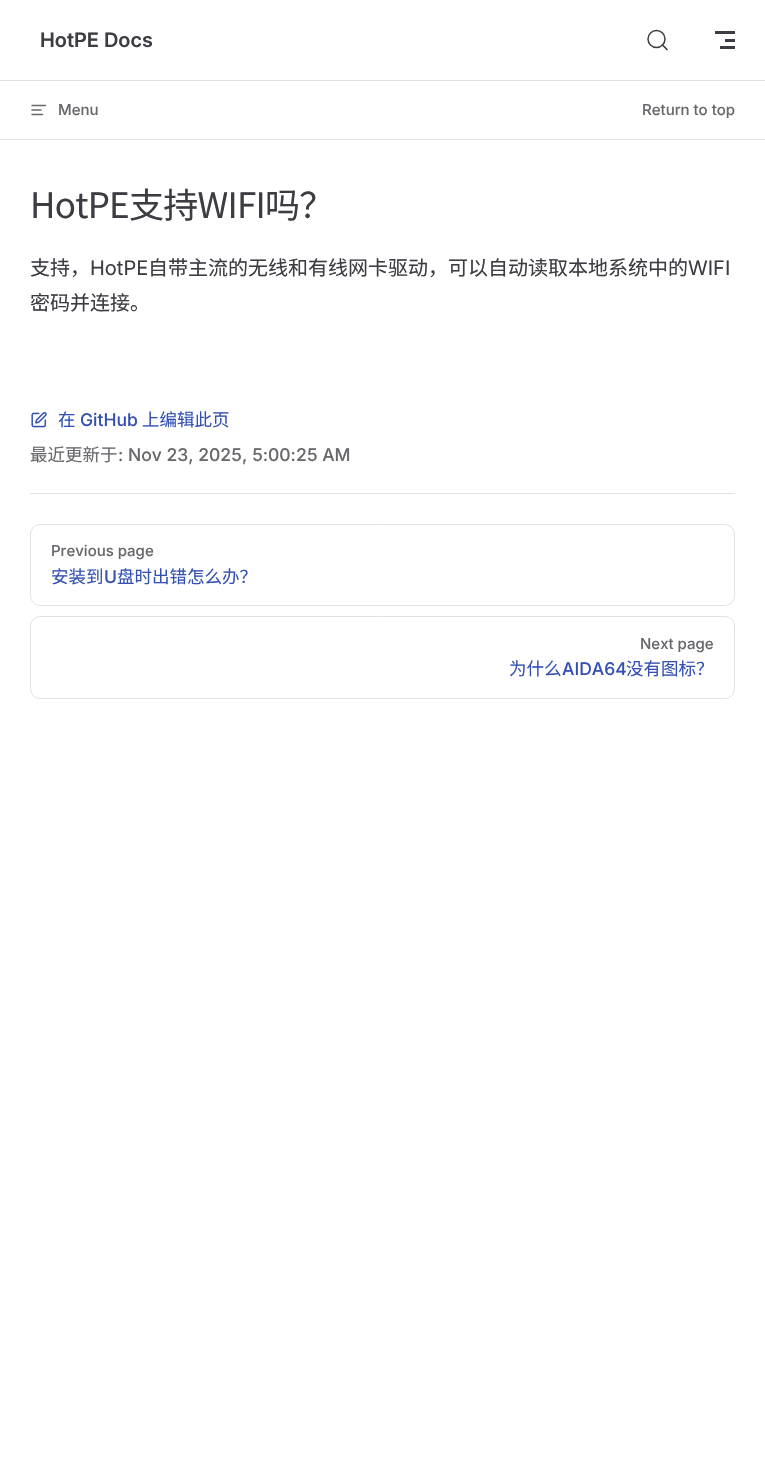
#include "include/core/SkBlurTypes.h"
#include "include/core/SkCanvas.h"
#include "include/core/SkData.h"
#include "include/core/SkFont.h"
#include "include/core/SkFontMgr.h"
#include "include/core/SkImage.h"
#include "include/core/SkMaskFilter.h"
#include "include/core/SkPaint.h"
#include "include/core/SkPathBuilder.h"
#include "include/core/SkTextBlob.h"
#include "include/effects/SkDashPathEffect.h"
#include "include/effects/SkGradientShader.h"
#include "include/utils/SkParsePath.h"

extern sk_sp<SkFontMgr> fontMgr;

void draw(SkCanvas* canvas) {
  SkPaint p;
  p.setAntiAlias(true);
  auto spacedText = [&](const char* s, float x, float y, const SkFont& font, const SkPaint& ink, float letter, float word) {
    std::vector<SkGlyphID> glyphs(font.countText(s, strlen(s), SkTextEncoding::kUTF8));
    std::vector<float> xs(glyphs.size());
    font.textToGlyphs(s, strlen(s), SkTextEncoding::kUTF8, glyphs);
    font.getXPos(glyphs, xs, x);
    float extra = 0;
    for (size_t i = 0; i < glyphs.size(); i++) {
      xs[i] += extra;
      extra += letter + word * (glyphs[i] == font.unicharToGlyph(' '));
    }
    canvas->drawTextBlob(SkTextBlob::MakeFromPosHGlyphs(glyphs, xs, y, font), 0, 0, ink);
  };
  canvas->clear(SK_ColorWHITE);
  p.setStyle(SkPaint::kStroke_Style);
  p.setStrokeWidth(1.7f);
  p.setStrokeCap(SkPaint::kRound_Cap);
  p.setStrokeJoin(SkPaint::kRound_Join);
  p.setColor(SkColorSetRGB(60, 60, 67));
  canvas->drawPath(SkPathBuilder().moveTo(667, 49.5f).lineTo(662.5f, 45).detach(), p);
  p.setStrokeWidth(1.5f);
  p.setStrokeCap(SkPaint::kButt_Cap);
  p.setStrokeJoin(SkPaint::kMiter_Join);
  canvas->drawCircle(656.5f, 39, 8.5f, p);
  p.setStyle(SkPaint::kFill_Style);
  canvas->drawRect(SkRect::MakeLTRB(715, 31, 735, 34), p);
  canvas->drawRect(SkRect::MakeLTRB(725, 39, 735, 42), p);
  canvas->drawRect(SkRect::MakeLTRB(720, 46, 735, 49), p);
  p.setColor(SkColorSetRGB(226, 226, 227));
  canvas->drawRect(SkRect::MakeLTRB(0, 80, 765, 81), p);
  canvas->drawRect(SkRect::MakeLTRB(0, 139, 765, 140), p);
  p.setStyle(SkPaint::kStroke_Style);
  p.setStrokeCap(SkPaint::kRound_Cap);
  p.setStrokeJoin(SkPaint::kRound_Join);
  p.setColor(SkColorSetRGB(103, 103, 108));
  canvas->drawPath(SkPathBuilder().moveTo(41, 110).lineTo(32, 110).moveTo(42.5f, 114.5f).lineTo(32, 114.5f).moveTo(45.5f, 105.5f).lineTo(32, 105.5f).detach(), p);
  canvas->drawImageRect(SkImages::DeferredFromEncodedData(SkData::MakeFromFileName("images/1.png")), SkRect::MakeLTRB(31, 412, 47, 428), SkSamplingOptions());
  p.setStyle(SkPaint::kFill_Style);
  p.setColor(SkColorSetRGB(226, 226, 227));
  canvas->drawRect(SkRect::MakeLTRB(30, 493, 735, 494), p);
  p.setStyle(SkPaint::kStroke_Style);
  p.setStrokeWidth(1);
  p.setStrokeCap(SkPaint::kButt_Cap);
  p.setStrokeJoin(SkPaint::kMiter_Join);
  canvas->drawRoundRect(SkRect::MakeLTRB(30.5f, 524.5f, 734.5f, 605.5f), 9.5f, 9.5f, p);
  canvas->drawRoundRect(SkRect::MakeLTRB(30.5f, 616.5f, 734.5f, 698.5f), 9.5f, 9.5f, p);
  SkFont font1(fontMgr->matchFamilyStyle("Inter", SkFontStyle(600, SkFontStyle::kNormal_Width, SkFontStyle::kUpright_Slant)), 20);
  font1.setSubpixel(true);
  p.setStyle(SkPaint::kFill_Style);
  p.setColor(SkColorSetRGB(60, 60, 67));
  canvas->drawString("HotPE Docs", 40, 47, font1, p);
  SkFont font2(fontMgr->matchFamilyStyle("Inter", SkFontStyle(500, SkFontStyle::kNormal_Width, SkFontStyle::kUpright_Slant)), 15);
  font2.setSubpixel(true);
  p.setColor(SkColorSetRGB(103, 103, 108));
  canvas->drawString("Menu", 58, 115, font2, p);
  canvas->drawString("Return to top", 642, 115, font2, p);
  SkFont font3(fontMgr->matchFamilyStyle("Noto Sans CJK SC", SkFontStyle::Normal()), 35);
  font3.setSubpixel(true);
  p.setColor(SkColorSetRGB(60, 60, 67));
  spacedText("HotPE支持WIFI吗？", 30, 218, font3, p, -0.75f, 0);
  SkFont font4(fontMgr->matchFamilyStyle("Noto Sans CJK SC", SkFontStyle::Normal()), 20);
  font4.setSubpixel(true);
  canvas->drawString("支持，", 30, 275, font4, p);
  SkFont font5(fontMgr->matchFamilyStyle("Inter", SkFontStyle::Normal()), 20);
  font5.setSubpixel(true);
  canvas->drawString("HotPE", 90, 275, font5, p);
  canvas->drawString("自带主流的无线和有线网卡驱动，可以自动读取本地系统中的", 148, 275, font4, p);
  canvas->drawString("WIFI", 688, 275, font5, p);
  canvas->drawString("密码并连接。", 30, 310, font4, p);
  SkFont font6(fontMgr->matchFamilyStyle("Noto Sans CJK SC", SkFontStyle::Normal()), 17.5f);
  font6.setSubpixel(true);
  p.setColor(SkColorSetRGB(52, 81, 178));
  canvas->drawString("在", 58, 426, font6, p);
  SkFont font7(fontMgr->matchFamilyStyle("Inter", SkFontStyle(500, SkFontStyle::kNormal_Width, SkFontStyle::kUpright_Slant)), 17.5f);
  font7.setSubpixel(true);
  canvas->drawString("GitHub", 80, 426, font7, p);
  canvas->drawString("上编辑此页", 142, 426, font6, p);
  p.setColor(SkColorSetRGB(103, 103, 108));
  canvas->drawString("最近更新于", 30, 461, font6, p);
  canvas->drawString(": Nov 23, 2025, 5:00:25 AM", 118, 461, font7, p);
  canvas->drawString("Previous page", 51, 556, font2, p);
  p.setColor(SkColorSetRGB(52, 81, 178));
  canvas->drawString("安装到", 51, 583, font6, p);
  canvas->drawString("U", 104, 583, font7, p);
  canvas->drawString("盘时出错怎么办？", 117, 583, font6, p);
  p.setColor(SkColorSetRGB(103, 103, 108));
  canvas->drawString("Next page", 640, 649, font2, p);
  p.setColor(SkColorSetRGB(52, 81, 178));
  canvas->drawString("为什么", 509, 675, font6, p);
  canvas->drawString("AIDA64", 562, 675, font7, p);
  canvas->drawString("没有图标？", 626, 675, font6, p);
}
